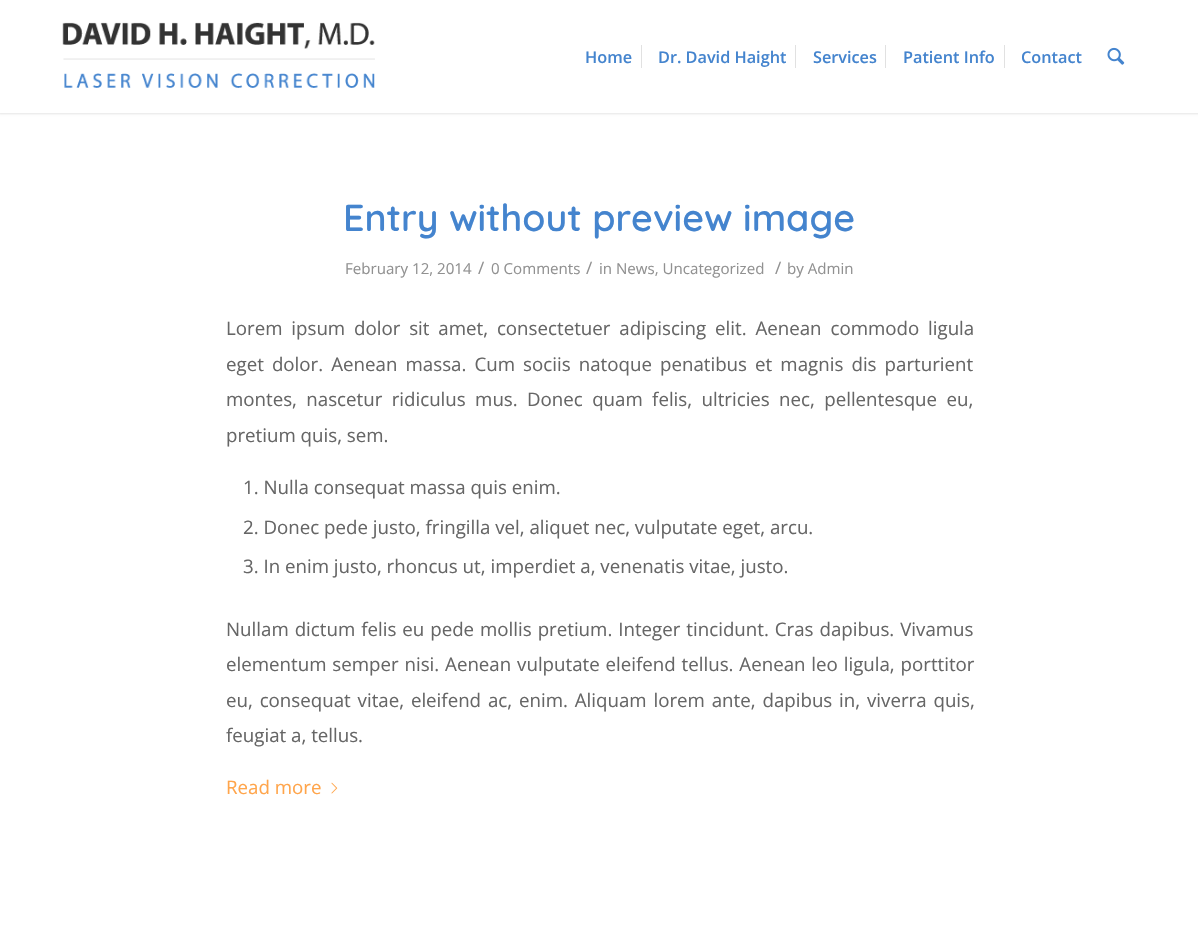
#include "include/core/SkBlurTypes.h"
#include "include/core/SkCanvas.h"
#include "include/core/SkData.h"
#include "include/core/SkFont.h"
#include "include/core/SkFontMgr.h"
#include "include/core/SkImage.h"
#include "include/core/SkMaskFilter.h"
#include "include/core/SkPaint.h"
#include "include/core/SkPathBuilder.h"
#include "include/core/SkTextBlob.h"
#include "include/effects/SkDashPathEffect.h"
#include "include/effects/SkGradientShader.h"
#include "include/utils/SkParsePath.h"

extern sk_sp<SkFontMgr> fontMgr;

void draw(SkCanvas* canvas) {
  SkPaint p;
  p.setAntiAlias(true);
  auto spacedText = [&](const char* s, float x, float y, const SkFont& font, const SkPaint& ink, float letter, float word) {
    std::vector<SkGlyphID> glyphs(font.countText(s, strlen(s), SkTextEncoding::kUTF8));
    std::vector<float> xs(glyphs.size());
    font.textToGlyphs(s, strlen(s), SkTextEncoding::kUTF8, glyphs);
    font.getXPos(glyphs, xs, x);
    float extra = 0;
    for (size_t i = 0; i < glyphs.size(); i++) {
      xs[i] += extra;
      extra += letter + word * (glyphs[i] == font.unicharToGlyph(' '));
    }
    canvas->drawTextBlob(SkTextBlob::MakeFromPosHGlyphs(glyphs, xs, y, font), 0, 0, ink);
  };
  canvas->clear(SK_ColorWHITE);
  p.setColor(SkColorSetARGB(26, 0, 0, 0));
  p.setMaskFilter(SkMaskFilter::MakeBlur(kNormal_SkBlurStyle, 1));
  canvas->drawRect(SkRect::MakeLTRB(-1, -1, 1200, 114), p);
  p.setMaskFilter(nullptr);
  p.setColor(SK_ColorWHITE);
  canvas->drawRect(SkRect::MakeLTRB(0, 0, 1198, 113), p);
  canvas->drawImageRect(SkImages::DeferredFromEncodedData(SkData::MakeFromFileName("images/1.png")), SkRect::MakeLTRB(62, 22, 375, 88), SkSamplingOptions());
  p.setColor(SkColorSetRGB(225, 225, 225));
  canvas->drawRect(SkRect::MakeLTRB(641, 45, 642, 68), p);
  canvas->drawRect(SkRect::MakeLTRB(795, 45, 796, 68), p);
  canvas->drawRect(SkRect::MakeLTRB(885, 45, 886, 68), p);
  canvas->drawRect(SkRect::MakeLTRB(1004, 45, 1005, 68), p);
  canvas->drawImageRect(SkImages::DeferredFromEncodedData(SkData::MakeFromFileName("images/2.png")), SkRect::MakeLTRB(1107, 47, 1125, 65), SkSamplingOptions());
  canvas->drawImageRect(SkImages::DeferredFromEncodedData(SkData::MakeFromFileName("images/3.png")), SkRect::MakeLTRB(331, 782, 338, 794), SkSamplingOptions());
  SkFont font1(fontMgr->matchFamilyStyle("Open Sans", SkFontStyle(600, SkFontStyle::kNormal_Width, SkFontStyle::kUpright_Slant)), 16.25f);
  font1.setSubpixel(true);
  p.setColor(SkColorSetRGB(68, 132, 206));
  canvas->drawString("Home", 585, 63, font1, p);
  canvas->drawString("Dr. David Haight", 658, 63, font1, p);
  canvas->drawString("Services", 813, 63, font1, p);
  canvas->drawString("Patient Info", 903, 63, font1, p);
  canvas->drawString("Contact", 1021, 63, font1, p);
  SkFont font2(fontMgr->matchFamilyStyle("Quicksand", SkFontStyle(600, SkFontStyle::kNormal_Width, SkFontStyle::kUpright_Slant)), 37.5f);
  font2.setSubpixel(true);
  canvas->drawString("Entry without preview image", 343, 231, font2, p);
  SkFont font3(fontMgr->matchFamilyStyle("Open Sans", SkFontStyle::Normal()), 15.1f);
  font3.setSubpixel(true);
  p.setColor(SkColorSetRGB(145, 145, 145));
  canvas->drawString("February 12, 2014", 345, 274, font3, p);
  SkFont font4(fontMgr->matchFamilyStyle("Open Sans", SkFontStyle::Normal()), 17);
  font4.setSubpixel(true);
  canvas->drawString("/", 478, 274, font4, p);
  canvas->drawString("0 Comments", 491, 274, font3, p);
  canvas->drawString("/", 586, 274, font4, p);
  canvas->drawString("in News, Uncategorized", 599, 274, font3, p);
  canvas->drawString("/", 775, 274, font4, p);
  canvas->drawString("by Admin", 787, 274, font3, p);
  SkFont font5(fontMgr->matchFamilyStyle("Open Sans", SkFontStyle::Normal()), 18.7f);
  font5.setSubpixel(true);
  p.setColor(SkColorSetRGB(102, 102, 102));
  spacedText("Lorem ipsum dolor sit amet, consectetuer adipiscing elit. Aenean commodo ligula", 226, 335, font5, p, 0, 4);
  spacedText("eget dolor. Aenean massa. Cum sociis natoque penatibus et magnis dis parturient", 226, 371, font5, p, 0, 3.25f);
  spacedText("montes, nascetur ridiculus mus. Donec quam felis, ultricies nec, pellentesque eu,", 226, 406, font5, p, 0, 4.5f);
  canvas->drawString("pretium quis, sem.", 226, 442, font5, p);
  canvas->drawString("1. Nulla consequat massa quis enim.", 243, 494, font5, p);
  canvas->drawString("2. Donec pede justo, fringilla vel, aliquet nec, vulputate eget, arcu.", 243, 534, font5, p);
  canvas->drawString("3. In enim justo, rhoncus ut, imperdiet a, venenatis vitae, justo.", 243, 573, font5, p);
  spacedText("Nullam dictum felis eu pede mollis pretium. Integer tincidunt. Cras dapibus. Vivamus", 226, 636, font5, p, 0, 1.1f);
  spacedText("elementum semper nisi. Aenean vulputate eleifend tellus. Aenean leo ligula, porttitor", 226, 671, font5, p, 0, 1);
  spacedText("eu, consequat vitae, eleifend ac, enim. Aliquam lorem ante, dapibus in, viverra quis,", 226, 707, font5, p, 0, 2);
  canvas->drawString("feugiat a, tellus.", 226, 742, font5, p);
  p.setColor(SkColorSetRGB(255, 165, 75));
  canvas->drawString("Read more", 226, 794, font5, p);
}
